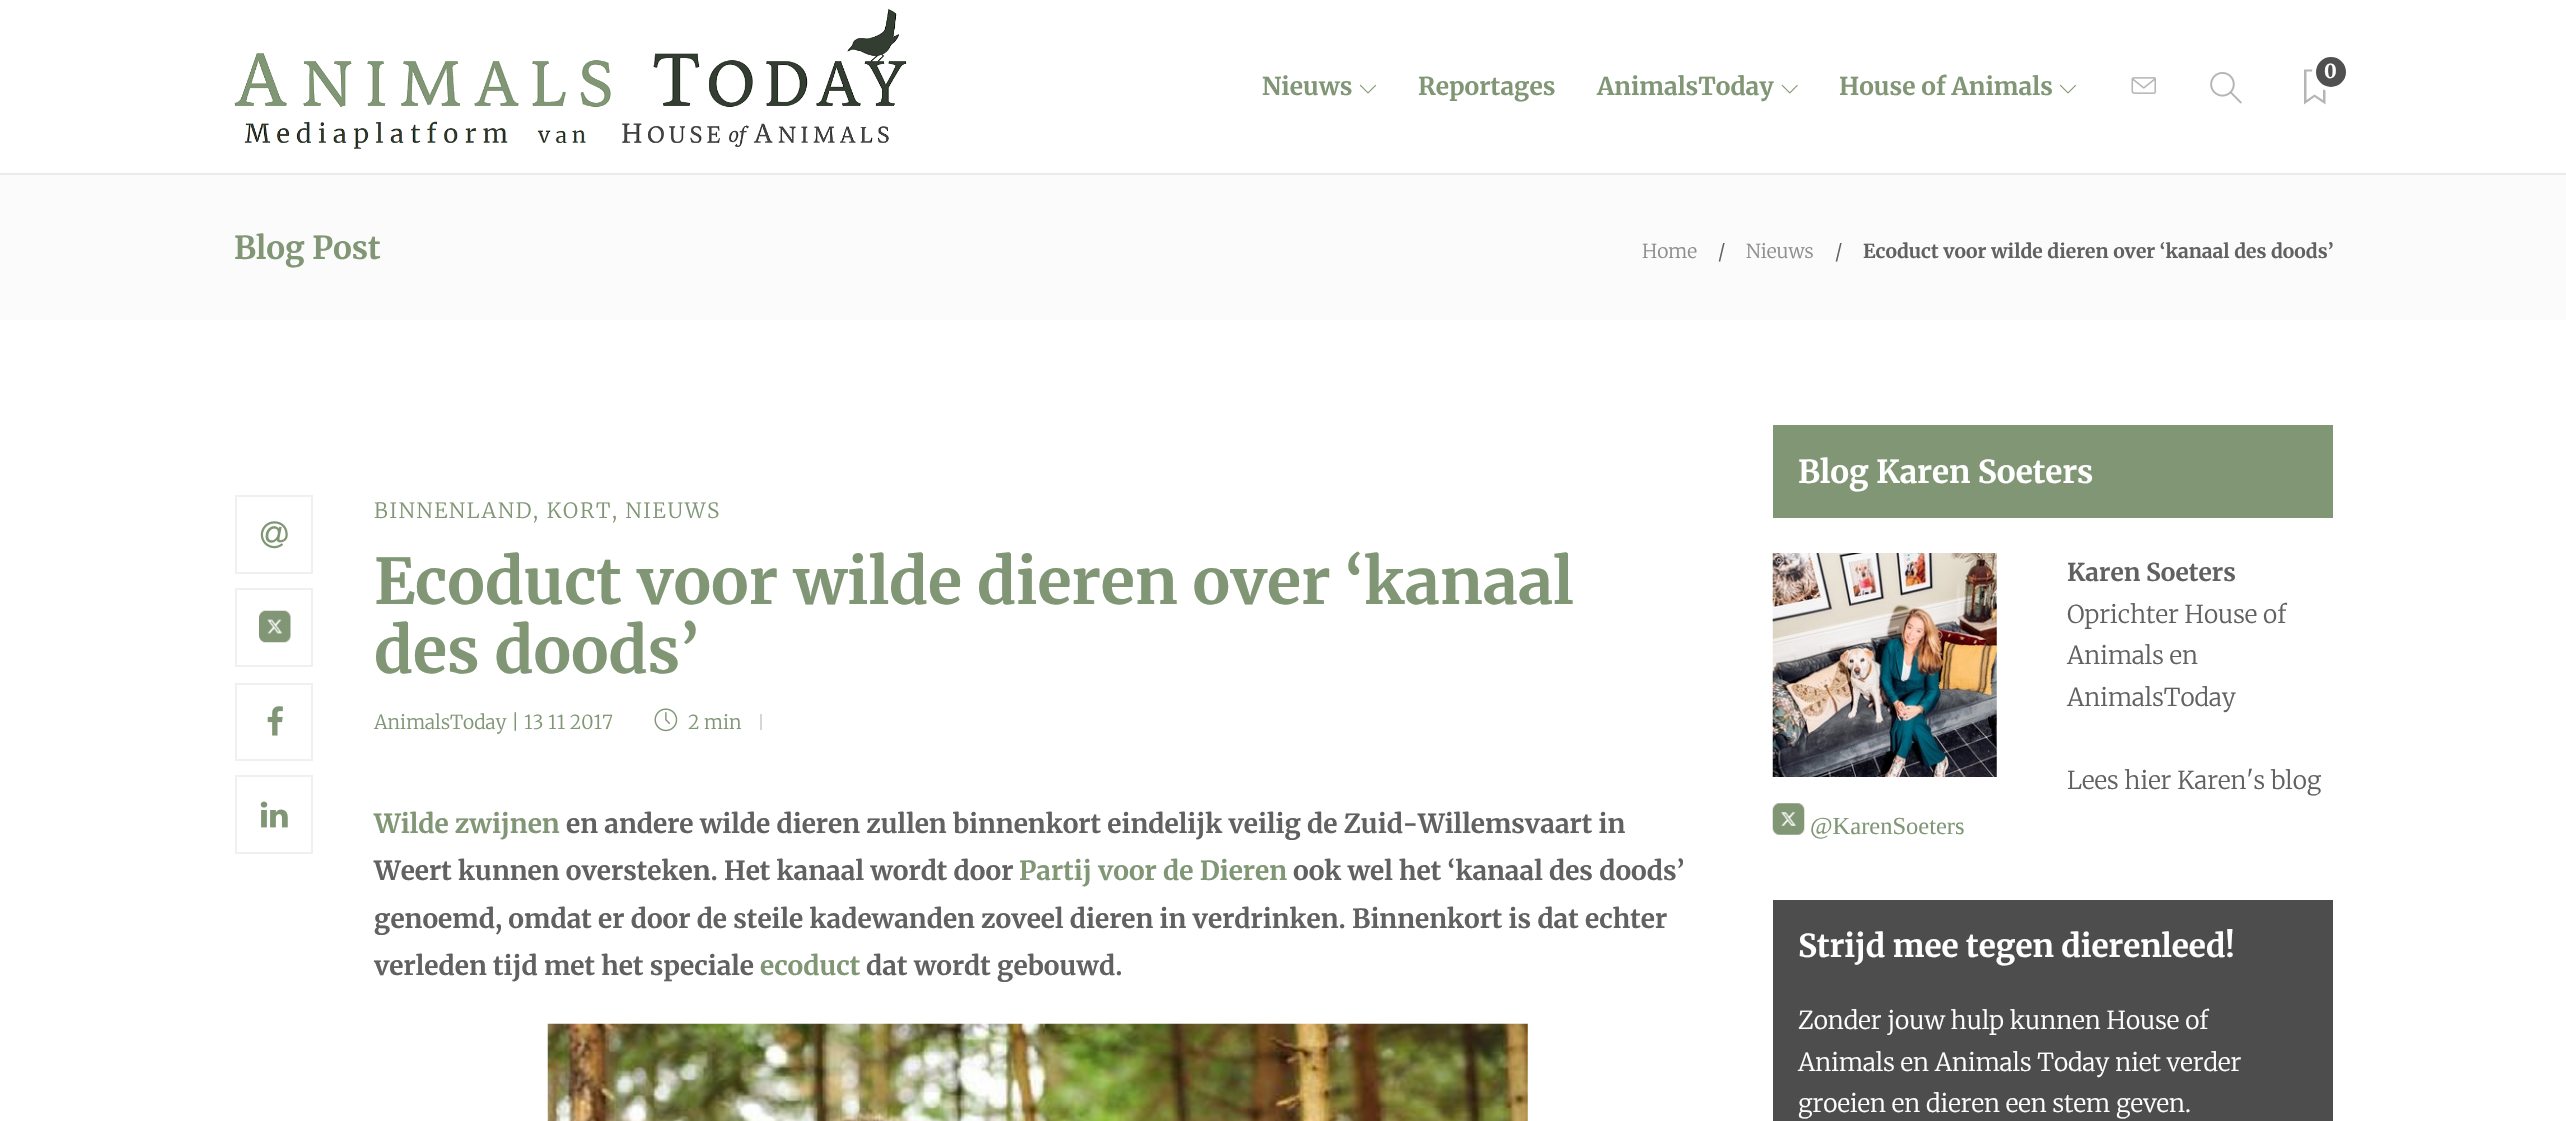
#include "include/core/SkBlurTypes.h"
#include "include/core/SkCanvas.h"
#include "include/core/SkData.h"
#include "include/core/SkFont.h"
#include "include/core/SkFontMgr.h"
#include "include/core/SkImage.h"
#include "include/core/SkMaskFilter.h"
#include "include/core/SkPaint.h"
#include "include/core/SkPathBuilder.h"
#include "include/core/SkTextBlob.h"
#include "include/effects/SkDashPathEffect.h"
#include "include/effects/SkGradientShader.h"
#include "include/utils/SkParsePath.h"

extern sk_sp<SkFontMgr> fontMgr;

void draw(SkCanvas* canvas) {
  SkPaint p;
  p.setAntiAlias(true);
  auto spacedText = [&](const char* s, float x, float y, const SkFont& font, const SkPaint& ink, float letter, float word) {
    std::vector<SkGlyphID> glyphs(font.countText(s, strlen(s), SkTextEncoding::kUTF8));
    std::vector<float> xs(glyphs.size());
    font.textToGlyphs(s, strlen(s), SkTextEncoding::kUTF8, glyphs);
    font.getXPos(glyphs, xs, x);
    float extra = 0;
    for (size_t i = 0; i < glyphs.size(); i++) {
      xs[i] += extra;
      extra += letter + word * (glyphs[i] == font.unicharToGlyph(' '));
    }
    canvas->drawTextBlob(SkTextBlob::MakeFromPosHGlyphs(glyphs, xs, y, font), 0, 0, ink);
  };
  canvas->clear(SK_ColorWHITE);
  p.setColor(SkColorSetRGB(235, 235, 235));
  canvas->drawRect(SkRect::MakeLTRB(0, 173, 2566, 175), p);
  canvas->drawImageRect(SkImages::DeferredFromEncodedData(SkData::MakeFromFileName("images/1.png")), SkRect::MakeLTRB(234, 8, 907, 149), SkSamplingOptions());
  canvas->drawImageRect(SkImages::DeferredFromEncodedData(SkData::MakeFromFileName("images/2.png")), SkRect::MakeLTRB(1359, 84, 1376, 94), SkSamplingOptions());
  canvas->drawImageRect(SkImages::DeferredFromEncodedData(SkData::MakeFromFileName("images/3.png")), SkRect::MakeLTRB(1781, 84, 1798, 94), SkSamplingOptions());
  canvas->drawImageRect(SkImages::DeferredFromEncodedData(SkData::MakeFromFileName("images/2.png")), SkRect::MakeLTRB(2059, 84, 2076, 94), SkSamplingOptions());
  canvas->drawImageRect(SkImages::DeferredFromEncodedData(SkData::MakeFromFileName("images/4.png")), SkRect::MakeLTRB(2131, 77, 2156, 94), SkSamplingOptions());
  canvas->drawImageRect(SkImages::DeferredFromEncodedData(SkData::MakeFromFileName("images/5.png")), SkRect::MakeLTRB(2210, 72, 2242, 104), SkSamplingOptions());
  p.setColor(SkColorSetRGB(181, 181, 181));
  canvas->drawPath(SkPathBuilder().moveTo(2304, 69.5f).lineTo(2304, 104.5f).lineTo(2314.5f, 97).lineTo(2325.5f, 104.5f).lineTo(2325.5f, 69.5f).close().moveTo(2323, 100).lineTo(2314.5f, 94.5f).lineTo(2306.5f, 100).lineTo(2306.5f, 71.5f).lineTo(2323, 71.5f).close().detach(), p);
  p.setColor(SkColorSetRGB(80, 80, 80));
  canvas->drawCircle(2331, 72, 17, p);
  p.setStyle(SkPaint::kStroke_Style);
  p.setStrokeWidth(4);
  p.setColor(SK_ColorWHITE);
  canvas->drawCircle(2331, 72, 17, p);
  p.setStyle(SkPaint::kFill_Style);
  p.setColor(SkColorSetRGB(251, 251, 251));
  canvas->drawRect(SkRect::MakeLTRB(0, 175, 2566, 320), p);
  p.setStyle(SkPaint::kStroke_Style);
  p.setStrokeWidth(2);
  p.setColor(SkColorSetRGB(240, 240, 240));
  canvas->drawRect(SkRect::MakeLTRB(236, 496, 312, 573), p);
  canvas->drawImageRect(SkImages::DeferredFromEncodedData(SkData::MakeFromFileName("images/6.png")), SkRect::MakeLTRB(260, 521, 288, 549), SkSamplingOptions());
  canvas->drawRect(SkRect::MakeLTRB(236, 589, 312, 666), p);
  canvas->drawImageRect(SkImages::DeferredFromEncodedData(SkData::MakeFromFileName("images/7.png")), SkRect::MakeLTRB(259, 610, 291, 643), SkSamplingOptions());
  canvas->drawRect(SkRect::MakeLTRB(236, 684, 312, 760), p);
  canvas->drawImageRect(SkImages::DeferredFromEncodedData(SkData::MakeFromFileName("images/8.png")), SkRect::MakeLTRB(267, 706, 283, 736), SkSamplingOptions());
  canvas->drawRect(SkRect::MakeLTRB(236, 776, 312, 853), p);
  canvas->drawImageRect(SkImages::DeferredFromEncodedData(SkData::MakeFromFileName("images/9.png")), SkRect::MakeLTRB(260, 801, 288, 828), SkSamplingOptions());
  canvas->drawImageRect(SkImages::DeferredFromEncodedData(SkData::MakeFromFileName("images/10.png")), SkRect::MakeLTRB(654, 708, 678, 732), SkSamplingOptions());
  p.setStyle(SkPaint::kFill_Style);
  p.setColor(SkColorSetRGB(214, 214, 214));
  canvas->drawRect(SkRect::MakeLTRB(760, 714, 762, 730), p);
  canvas->drawImageRect(SkImages::DeferredFromEncodedData(SkData::MakeFromFileName("images/11.png")), SkRect::MakeLTRB(547, 1023, 1528, 1121), SkSamplingOptions());
  p.setColor(SkColorSetRGB(128, 150, 117));
  canvas->drawRect(SkRect::MakeLTRB(1773, 425, 2333, 518), p);
  canvas->drawImageRect(SkImages::DeferredFromEncodedData(SkData::MakeFromFileName("images/12.png")), SkRect::MakeLTRB(1772, 553, 1997, 777), SkSamplingOptions());
  canvas->drawImageRect(SkImages::DeferredFromEncodedData(SkData::MakeFromFileName("images/13.png")), SkRect::MakeLTRB(1772, 803, 1805, 835), SkSamplingOptions());
  p.setColor(SkColorSetRGB(77, 77, 77));
  canvas->drawRect(SkRect::MakeLTRB(1773, 900, 2333, 1121), p);
  SkFont font1(fontMgr->matchFamilyStyle("Merriweather", SkFontStyle::Bold()), 24.5f);
  font1.setSubpixel(true);
  p.setColor(SkColorSetRGB(128, 150, 117));
  canvas->drawString("Nieuws", 1262, 95, font1, p);
  canvas->drawString("Reportages", 1418, 95, font1, p);
  canvas->drawString("AnimalsToday", 1597, 95, font1, p);
  canvas->drawString("House of Animals", 1839, 95, font1, p);
  SkFont font2(fontMgr->matchFamilyStyle("Merriweather", SkFontStyle::Bold()), 19.25f);
  font2.setSubpixel(true);
  p.setColor(SK_ColorWHITE);
  canvas->drawString("0", 2324, 78, font2, p);
  SkFont font3(fontMgr->matchFamilyStyle("Merriweather", SkFontStyle::Bold()), 31.5f);
  font3.setSubpixel(true);
  p.setColor(SkColorSetRGB(128, 150, 117));
  canvas->drawString("Blog Post", 234, 259, font3, p);
  SkFont font4(fontMgr->matchFamilyStyle("Merriweather", SkFontStyle(300, SkFontStyle::kNormal_Width, SkFontStyle::kUpright_Slant)), 19.25f);
  font4.setSubpixel(true);
  p.setColor(SkColorSetRGB(141, 141, 141));
  canvas->drawString("Home", 1642, 258, font4, p);
  p.setColor(SkColorSetRGB(97, 97, 97));
  canvas->drawString("/", 1718, 258, font4, p);
  p.setColor(SkColorSetRGB(141, 141, 141));
  canvas->drawString("Nieuws", 1746, 258, font4, p);
  p.setColor(SkColorSetRGB(97, 97, 97));
  canvas->drawString("/", 1835, 258, font4, p);
  canvas->drawString("Ecoduct voor wilde dieren over ‘kanaal des doods’", 1863, 258, font2, p);
  SkFont font5(fontMgr->matchFamilyStyle("Merriweather", SkFontStyle(300, SkFontStyle::kNormal_Width, SkFontStyle::kUpright_Slant)), 21);
  font5.setSubpixel(true);
  p.setColor(SkColorSetRGB(128, 150, 117));
  spacedText("BINNENLAND, KORT, NIEUWS", 374, 518, font5, p, 1.75f, 0);
  SkFont font6(fontMgr->matchFamilyStyle("Merriweather", SkFontStyle::Bold()), 63);
  font6.setSubpixel(true);
  canvas->drawString("Ecoduct voor wilde dieren over ‘kanaal", 374, 604, font6, p);
  canvas->drawString("des doods’", 374, 673, font6, p);
  canvas->drawString("AnimalsToday | 13 11 2017", 374, 729, font4, p);
  canvas->drawString("2 min", 688, 729, font4, p);
  SkFont font7(fontMgr->matchFamilyStyle("Merriweather", SkFontStyle::Bold()), 26.25f);
  font7.setSubpixel(true);
  canvas->drawString("Wilde zwijnen", 374, 833, font7, p);
  p.setColor(SkColorSetRGB(97, 97, 97));
  canvas->drawString("en andere wilde dieren zullen binnenkort eindelijk veilig de Zuid-Willemsvaart in", 566, 833, font7, p);
  canvas->drawString("Weert kunnen oversteken. Het kanaal wordt door", 374, 880, font7, p);
  p.setColor(SkColorSetRGB(128, 150, 117));
  canvas->drawString("Partij voor de Dieren", 1019, 880, font7, p);
  p.setColor(SkColorSetRGB(97, 97, 97));
  canvas->drawString("ook wel het ‘kanaal des doods’", 1293, 880, font7, p);
  canvas->drawString("genoemd, omdat er door de steile kadewanden zoveel dieren in verdrinken. Binnenkort is dat echter", 374, 928, font7, p);
  canvas->drawString("verleden tijd met het speciale", 374, 975, font7, p);
  p.setColor(SkColorSetRGB(128, 150, 117));
  canvas->drawString("ecoduct", 760, 975, font7, p);
  p.setColor(SkColorSetRGB(97, 97, 97));
  canvas->drawString("dat wordt gebouwd.", 866, 975, font7, p);
  p.setColor(SK_ColorWHITE);
  canvas->drawString("Blog Karen Soeters", 1798, 483, font3, p);
  p.setColor(SkColorSetRGB(97, 97, 97));
  canvas->drawString("Karen Soeters", 2067, 581, font1, p);
  SkFont font8(fontMgr->matchFamilyStyle("Merriweather", SkFontStyle(300, SkFontStyle::kNormal_Width, SkFontStyle::kUpright_Slant)), 24.5f);
  font8.setSubpixel(true);
  canvas->drawString("Oprichter House of", 2067, 623, font8, p);
  canvas->drawString("Animals en", 2067, 664, font8, p);
  canvas->drawString("AnimalsToday", 2067, 706, font8, p);
  canvas->drawString("Lees hier Karen's blog", 2067, 789, font8, p);
  SkFont font9(fontMgr->matchFamilyStyle("Liberation Serif", SkFontStyle::Normal()), 24.5f);
  font9.setSubpixel(true);
  p.setColor(SkColorSetRGB(128, 150, 117));
  canvas->drawString("@KarenSoeters", 1810, 834, font9, p);
  p.setColor(SK_ColorWHITE);
  canvas->drawString("Strijd mee tegen dierenleed!", 1798, 957, font3, p);
  canvas->drawString("Zonder jouw hulp kunnen House of", 1798, 1029, font8, p);
  canvas->drawString("Animals en Animals Today niet verder", 1798, 1071, font8, p);
  canvas->drawString("groeien en dieren een stem geven.", 1798, 1112, font8, p);
}
